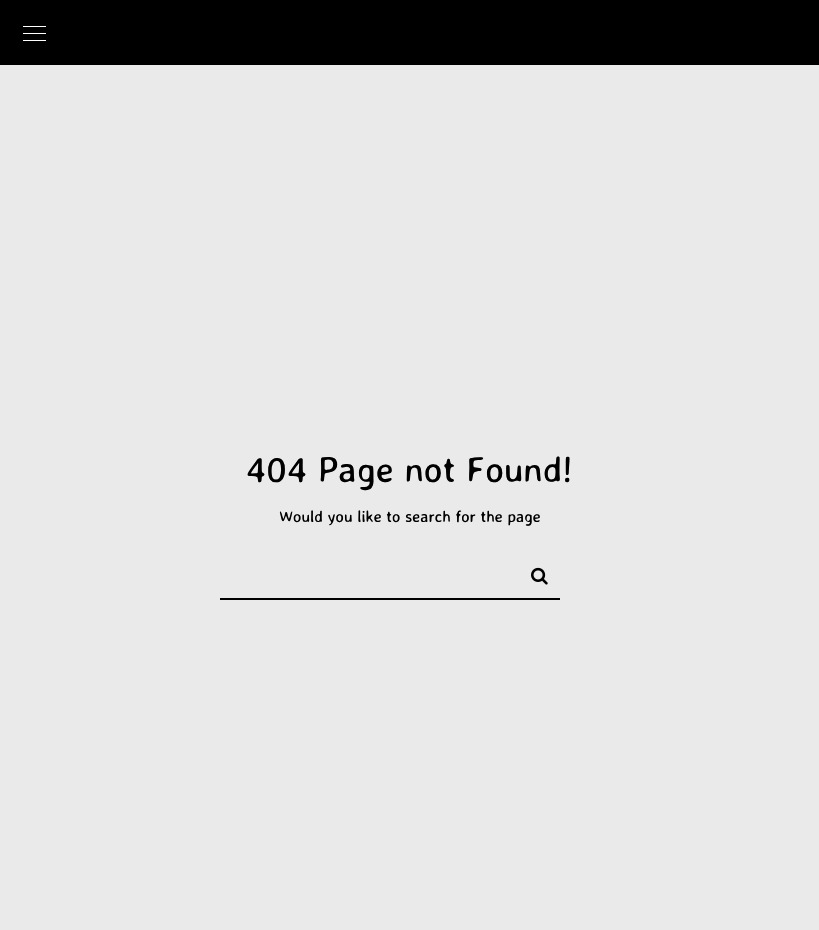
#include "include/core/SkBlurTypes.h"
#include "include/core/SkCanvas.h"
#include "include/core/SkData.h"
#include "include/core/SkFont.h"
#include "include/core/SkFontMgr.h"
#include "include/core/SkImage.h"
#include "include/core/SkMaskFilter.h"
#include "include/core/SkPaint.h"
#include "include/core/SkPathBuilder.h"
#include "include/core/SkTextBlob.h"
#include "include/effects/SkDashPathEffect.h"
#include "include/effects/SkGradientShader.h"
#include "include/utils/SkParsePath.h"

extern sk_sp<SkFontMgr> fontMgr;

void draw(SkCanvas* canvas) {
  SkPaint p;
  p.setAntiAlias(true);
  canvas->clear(SkColorSetRGB(234, 234, 234));
  p.setColor(SK_ColorBLACK);
  canvas->drawRect(SkRect::MakeLTRB(0, 0, 819, 65), p);
  p.setColor(SK_ColorWHITE);
  canvas->drawRect(SkRect::MakeLTRB(23, 33, 46, 34), p);
  canvas->drawRect(SkRect::MakeLTRB(23, 26, 46, 27), p);
  canvas->drawRect(SkRect::MakeLTRB(23, 40, 46, 41), p);
  canvas->drawImageRect(SkImages::DeferredFromEncodedData(SkData::MakeFromFileName("images/1.png")), SkRect::MakeLTRB(531, 567, 548, 585), SkSamplingOptions());
  p.setColor(SK_ColorBLACK);
  canvas->drawRect(SkRect::MakeLTRB(220, 598, 560, 600), p);
  SkFont font1(fontMgr->matchFamilyStyle("Averia Sans Libre", SkFontStyle::Normal()), 36);
  font1.setSubpixel(true);
  canvas->drawString("404 Page not Found!", 246, 482, font1, p);
  SkFont font2(fontMgr->matchFamilyStyle("Averia Sans Libre", SkFontStyle::Normal()), 16);
  font2.setSubpixel(true);
  canvas->drawString("Would you like to search for the page", 279, 522, font2, p);
}
